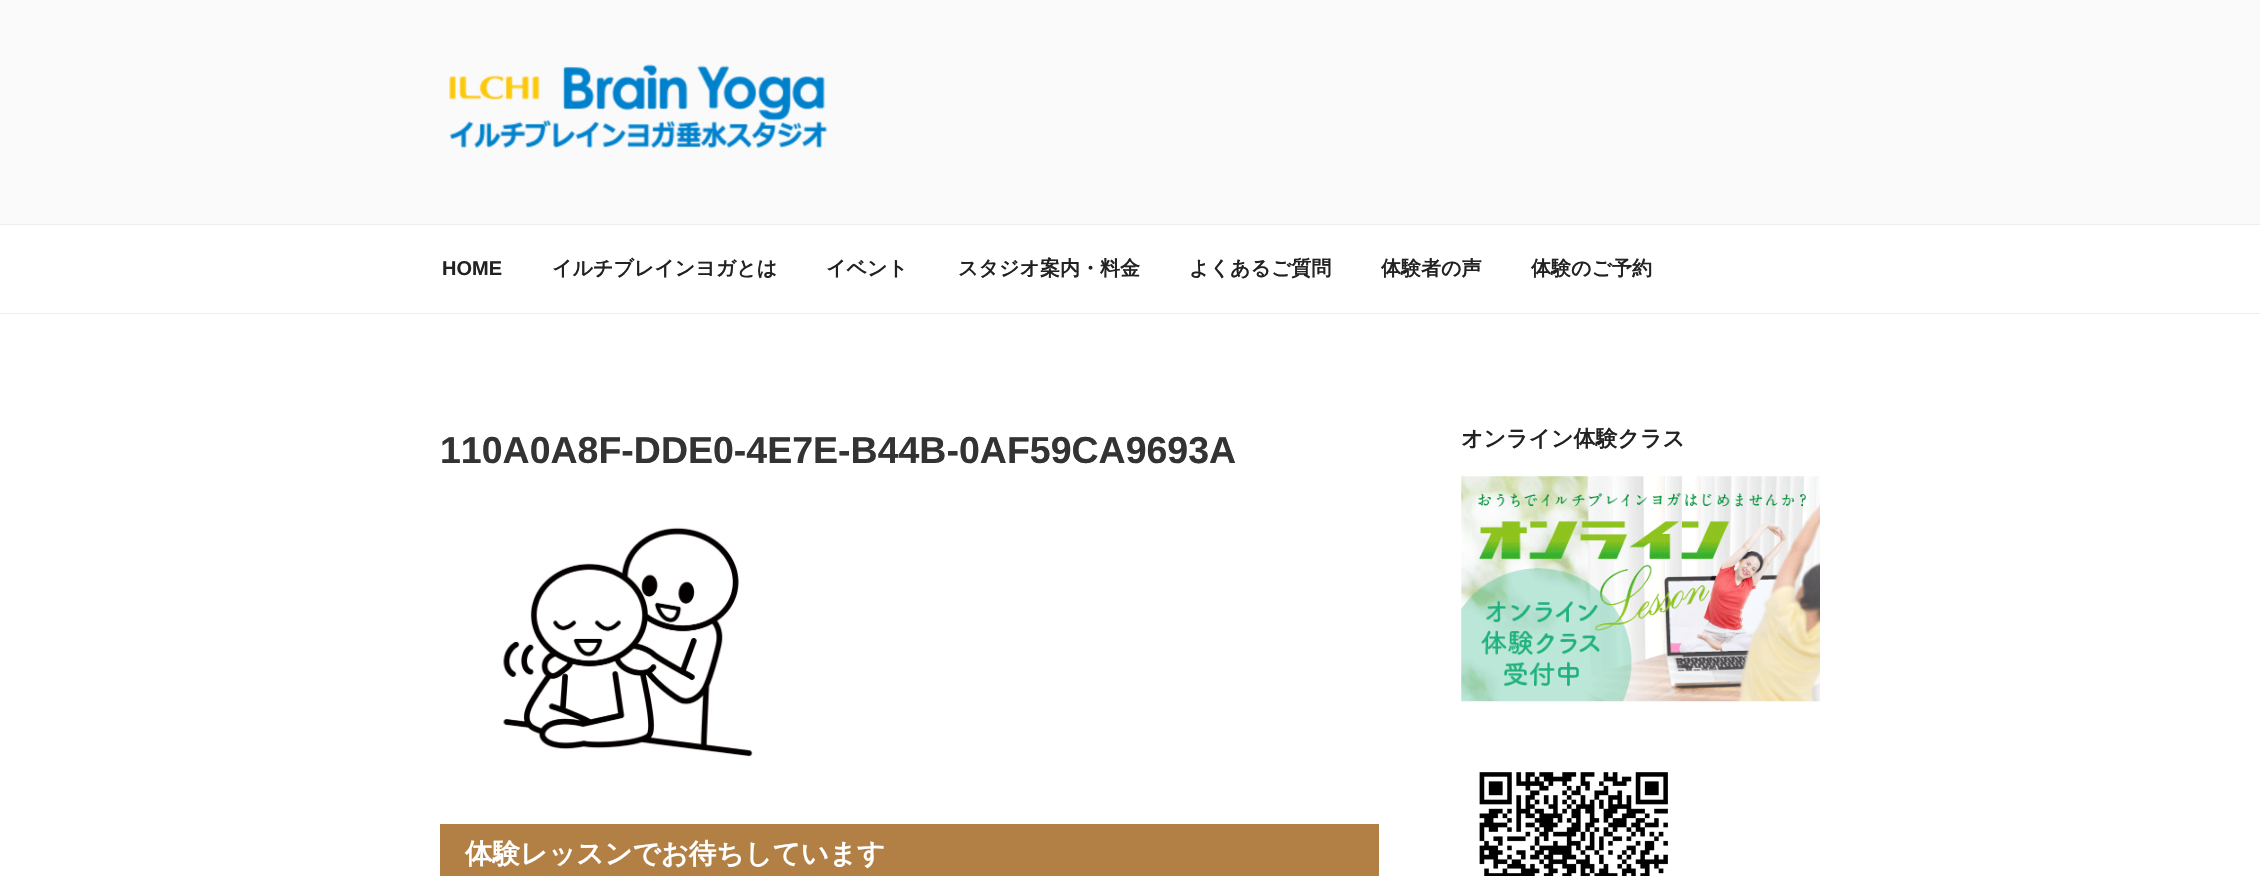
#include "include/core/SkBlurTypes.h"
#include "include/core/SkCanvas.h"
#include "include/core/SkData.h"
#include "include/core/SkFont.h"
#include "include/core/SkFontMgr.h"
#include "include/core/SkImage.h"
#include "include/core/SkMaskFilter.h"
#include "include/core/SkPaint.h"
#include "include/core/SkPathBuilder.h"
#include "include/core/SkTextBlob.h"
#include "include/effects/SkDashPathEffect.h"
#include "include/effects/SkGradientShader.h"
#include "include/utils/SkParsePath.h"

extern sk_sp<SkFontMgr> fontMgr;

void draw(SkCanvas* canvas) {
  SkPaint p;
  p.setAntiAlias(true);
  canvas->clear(SK_ColorWHITE);
  p.setColor(SkColorSetRGB(250, 250, 250));
  canvas->drawRect(SkRect::MakeLTRB(0, 0, 2260, 224), p);
  canvas->drawImageRect(SkImages::DeferredFromEncodedData(SkData::MakeFromFileName("images/1.png")), SkRect::MakeLTRB(449, 64, 828, 149), SkSamplingOptions());
  p.setColor(SkColorSetRGB(238, 238, 238));
  canvas->drawRect(SkRect::MakeLTRB(0, 224, 2260, 225), p);
  canvas->drawRect(SkRect::MakeLTRB(0, 313, 2260, 314), p);
  canvas->drawImageRect(SkImages::DeferredFromEncodedData(SkData::MakeFromFileName("images/2.png")), SkRect::MakeLTRB(503, 527, 753, 757), SkSamplingOptions());
  p.setColor(SkColorSetRGB(178, 128, 68));
  canvas->drawRect(SkRect::MakeLTRB(440, 824, 1379, 876), p);
  canvas->drawImageRect(SkImages::DeferredFromEncodedData(SkData::MakeFromFileName("images/3.png")), SkRect::MakeLTRB(1461, 476, 1820, 702), SkSamplingOptions());
  canvas->drawImageRect(SkImages::DeferredFromEncodedData(SkData::MakeFromFileName("images/4.png")), SkRect::MakeLTRB(1479, 772, 1668, 876), SkSamplingOptions());
  SkFont font1(fontMgr->matchFamilyStyle("Liberation Sans", SkFontStyle::Bold()), 20);
  font1.setSubpixel(true);
  p.setColor(SkColorSetRGB(34, 34, 34));
  canvas->drawString("HOME", 442, 275, font1, p);
  SkFont font2(fontMgr->matchFamilyStyle("WenQuanYi Zen Hei", SkFontStyle::Bold()), 20);
  font2.setSubpixel(true);
  canvas->drawString("イルチブレインヨガとは", 552, 275, font2, p);
  canvas->drawString("イベント", 826, 275, font2, p);
  canvas->drawString("スタジオ案内・料金", 958, 275, font2, p);
  canvas->drawString("よくあるご質問", 1189, 275, font2, p);
  canvas->drawString("体験者の声", 1381, 275, font2, p);
  canvas->drawString("体験のご予約", 1531, 275, font2, p);
  SkFont font3(fontMgr->matchFamilyStyle("Liberation Sans", SkFontStyle::Bold()), 37.5f);
  font3.setSubpixel(true);
  p.setColor(SkColorSetRGB(51, 51, 51));
  canvas->drawString("110A0A8F-DDE0-4E7E-B44B-0AF59CA9693A", 440, 463, font3, p);
  SkFont font4(fontMgr->matchFamilyStyle("WenQuanYi Zen Hei", SkFontStyle::Bold()), 27.5f);
  font4.setSubpixel(true);
  p.setColor(SK_ColorWHITE);
  canvas->drawString("体験レッスンでお待ちしています", 465, 863, font4, p);
  SkFont font5(fontMgr->matchFamilyStyle("WenQuanYi Zen Hei", SkFontStyle::Bold()), 22);
  font5.setSubpixel(true);
  p.setColor(SkColorSetRGB(34, 34, 34));
  canvas->drawString("オンライン体験クラス", 1461, 446, font5, p);
}
